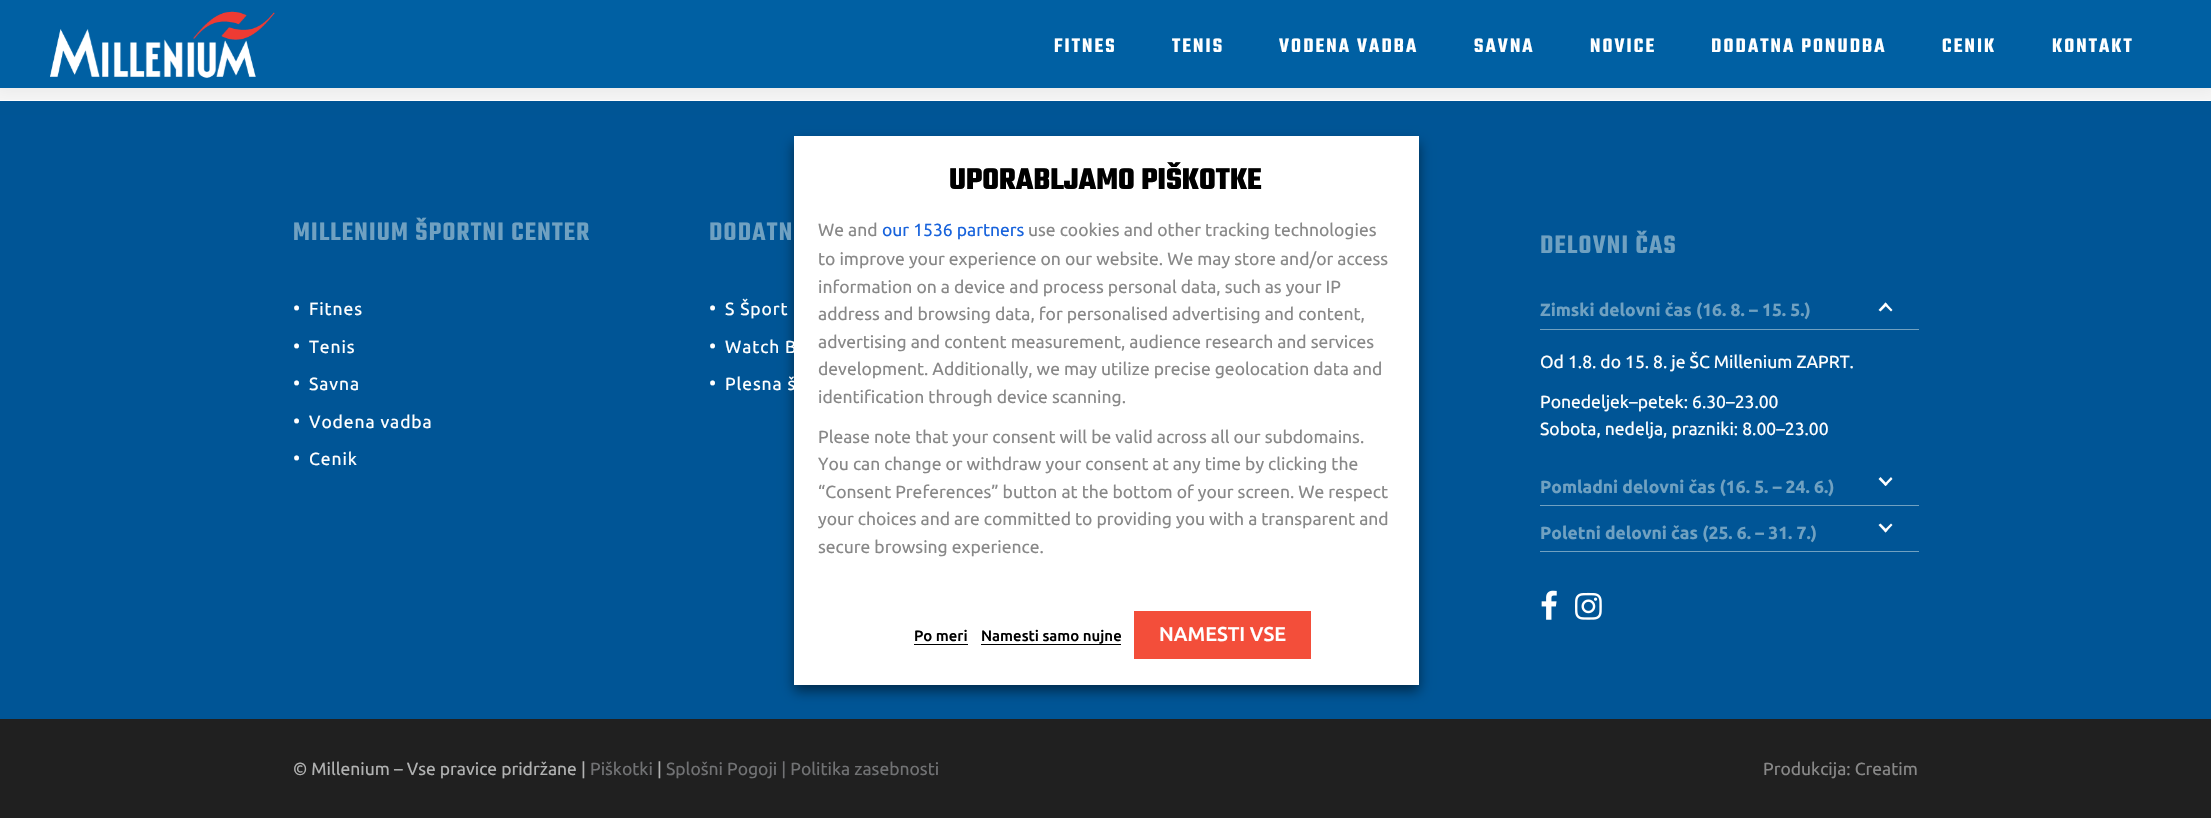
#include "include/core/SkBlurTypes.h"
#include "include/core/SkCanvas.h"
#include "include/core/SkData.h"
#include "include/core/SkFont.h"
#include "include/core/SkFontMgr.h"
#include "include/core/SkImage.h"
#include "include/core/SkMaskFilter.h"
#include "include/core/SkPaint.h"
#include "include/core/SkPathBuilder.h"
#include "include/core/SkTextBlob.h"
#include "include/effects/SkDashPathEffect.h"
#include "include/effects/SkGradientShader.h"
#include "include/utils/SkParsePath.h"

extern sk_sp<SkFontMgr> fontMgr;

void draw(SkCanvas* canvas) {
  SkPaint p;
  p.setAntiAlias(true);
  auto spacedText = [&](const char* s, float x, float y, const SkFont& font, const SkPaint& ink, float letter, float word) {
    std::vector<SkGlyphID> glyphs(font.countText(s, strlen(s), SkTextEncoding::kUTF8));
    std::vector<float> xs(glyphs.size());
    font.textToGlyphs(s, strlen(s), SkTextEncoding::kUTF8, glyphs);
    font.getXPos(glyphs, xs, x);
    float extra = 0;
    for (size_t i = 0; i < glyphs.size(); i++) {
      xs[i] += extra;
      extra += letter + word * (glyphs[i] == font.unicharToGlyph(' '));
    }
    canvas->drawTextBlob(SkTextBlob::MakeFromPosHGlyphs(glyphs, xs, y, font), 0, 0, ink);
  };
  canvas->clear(SK_ColorWHITE);
  p.setColor(SkColorSetRGB(246, 246, 246));
  canvas->drawRect(SkRect::MakeLTRB(0, 88, 2211, 100), p);
  p.setColor(SkColorSetRGB(0, 85, 150));
  canvas->drawRect(SkRect::MakeLTRB(0, 101, 2211, 719), p);
  p.setColor(SkColorSetARGB(13, 0, 0, 0));
  p.setMaskFilter(SkMaskFilter::MakeBlur(kNormal_SkBlurStyle, 8));
  canvas->drawRect(SkRect::MakeLTRB(-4, -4, 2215, 91), p);
  p.setMaskFilter(nullptr);
  p.setColor(SkColorSetRGB(0, 96, 163));
  canvas->drawRect(SkRect::MakeLTRB(0, 0, 2211, 88), p);
  canvas->drawImageRect(SkImages::DeferredFromEncodedData(SkData::MakeFromFileName("images/1.png")), SkRect::MakeLTRB(50, 11, 275, 78), SkSamplingOptions());
  p.setColor(SkColorSetRGB(112, 161, 193));
  canvas->drawRect(SkRect::MakeLTRB(1540, 329, 1919, 330), p);
  p.setColor(SK_ColorWHITE);
  canvas->drawPath(SkPathBuilder().moveTo(1880.5f, 311.5f).lineTo(1878.5f, 310).lineTo(1885.5f, 302.5f).lineTo(1887.5f, 304.5f).close().detach(), p);
  canvas->drawPath(SkPathBuilder().moveTo(1891, 311.5f).lineTo(1884, 304.5f).lineTo(1885.5f, 302.5f).lineTo(1892.5f, 310).close().detach(), p);
  p.setColor(SkColorSetRGB(112, 161, 193));
  canvas->drawRect(SkRect::MakeLTRB(1540, 505, 1919, 506), p);
  p.setColor(SK_ColorWHITE);
  canvas->drawPath(SkPathBuilder().moveTo(1891, 477).lineTo(1892.5f, 479).lineTo(1885.5f, 486).lineTo(1884, 484.5f).close().detach(), p);
  canvas->drawPath(SkPathBuilder().moveTo(1880.5f, 477).lineTo(1887.5f, 484.5f).lineTo(1885.5f, 486).lineTo(1878.5f, 479).close().detach(), p);
  p.setColor(SkColorSetRGB(112, 161, 193));
  canvas->drawRect(SkRect::MakeLTRB(1540, 551, 1919, 552), p);
  p.setColor(SK_ColorWHITE);
  canvas->drawPath(SkPathBuilder().moveTo(1891, 523.5f).lineTo(1892.5f, 525).lineTo(1885.5f, 532.5f).lineTo(1884, 530.5f).close().detach(), p);
  canvas->drawPath(SkPathBuilder().moveTo(1880.5f, 523.5f).lineTo(1887.5f, 530.5f).lineTo(1885.5f, 532.5f).lineTo(1878.5f, 525).close().detach(), p);
  canvas->drawImageRect(SkImages::DeferredFromEncodedData(SkData::MakeFromFileName("images/2.png")), SkRect::MakeLTRB(1541, 590, 1557, 620), SkSamplingOptions());
  canvas->drawImageRect(SkImages::DeferredFromEncodedData(SkData::MakeFromFileName("images/3.png")), SkRect::MakeLTRB(1575, 592, 1602, 620), SkSamplingOptions());
  p.setColor(SkColorSetRGB(32, 32, 32));
  canvas->drawRect(SkRect::MakeLTRB(0, 719, 2211, 818), p);
  p.setColor(SkColorSetARGB(128, 0, 0, 0));
  p.setMaskFilter(SkMaskFilter::MakeBlur(kNormal_SkBlurStyle, 6));
  canvas->drawRect(SkRect::MakeLTRB(794, 143, 1419, 691), p);
  p.setMaskFilter(nullptr);
  p.setColor(SK_ColorWHITE);
  canvas->drawRect(SkRect::MakeLTRB(794, 136, 1419, 685), p);
  p.setColor(SK_ColorBLACK);
  canvas->drawRect(SkRect::MakeLTRB(914, 644, 968, 645), p);
  canvas->drawRect(SkRect::MakeLTRB(981, 644, 1121, 645), p);
  p.setColor(SkColorSetRGB(243, 78, 58));
  canvas->drawRect(SkRect::MakeLTRB(1134, 611, 1311, 659), p);
  SkFont font1(fontMgr->matchFamilyStyle("Teko", SkFontStyle(600, SkFontStyle::kNormal_Width, SkFontStyle::kUpright_Slant)), 21.25f);
  font1.setSubpixel(true);
  p.setColor(SK_ColorWHITE);
  spacedText("FITNES", 1054, 52, font1, p, 2.1f, 0);
  spacedText("TENIS", 1172, 52, font1, p, 2.1f, 0);
  spacedText("VODENA VADBA", 1279, 52, font1, p, 2.1f, 0);
  spacedText("SAVNA", 1474, 52, font1, p, 2.1f, 0);
  spacedText("NOVICE", 1590, 52, font1, p, 2.1f, 0);
  spacedText("DODATNA PONUDBA", 1711, 52, font1, p, 2.1f, 0);
  spacedText("CENIK", 1942, 52, font1, p, 2.1f, 0);
  spacedText("KONTAKT", 2052, 52, font1, p, 2.1f, 0);
  SkFont font2(fontMgr->matchFamilyStyle("Teko", SkFontStyle(600, SkFontStyle::kNormal_Width, SkFontStyle::kUpright_Slant)), 27.5f);
  font2.setSubpixel(true);
  p.setColor(SkColorSetRGB(112, 161, 193));
  spacedText("MILLENIUM ŠPORTNI CENTER", 293, 240, font2, p, 1.25f, 0);
  SkFont font3(fontMgr->matchFamilyStyle("Ubuntu", SkFontStyle(300, SkFontStyle::kNormal_Width, SkFontStyle::kUpright_Slant)), 20);
  font3.setSubpixel(true);
  p.setColor(SK_ColorWHITE);
  canvas->drawString("•", 293, 315, font3, p);
  SkFont font4(fontMgr->matchFamilyStyle("Ubuntu", SkFontStyle::Normal()), 17.5f);
  font4.setSubpixel(true);
  spacedText("Fitnes", 309, 315, font4, p, 0.9f, 0);
  canvas->drawString("•", 293, 353, font3, p);
  spacedText("Tenis", 309, 353, font4, p, 0.9f, 0);
  canvas->drawString("•", 293, 390, font3, p);
  spacedText("Savna", 309, 390, font4, p, 0.9f, 0);
  canvas->drawString("•", 293, 428, font3, p);
  spacedText("Vodena vadba", 309, 428, font4, p, 0.9f, 0);
  canvas->drawString("•", 293, 465, font3, p);
  spacedText("Cenik", 309, 465, font4, p, 0.9f, 0);
  p.setColor(SkColorSetRGB(112, 161, 193));
  spacedText("DODATN", 709, 240, font2, p, 1.25f, 0);
  p.setColor(SK_ColorWHITE);
  canvas->drawString("•", 709, 315, font3, p);
  spacedText("S Šport", 725, 315, font4, p, 0.9f, 0);
  canvas->drawString("•", 709, 353, font3, p);
  spacedText("Watch B", 725, 353, font4, p, 0.9f, 0);
  canvas->drawString("•", 709, 390, font3, p);
  spacedText("Plesna š", 725, 390, font4, p, 0.9f, 0);
  p.setColor(SkColorSetRGB(112, 161, 193));
  spacedText("DELOVNI ČAS", 1540, 253, font2, p, 1.25f, 0);
  SkFont font5(fontMgr->matchFamilyStyle("Ubuntu", SkFontStyle::Bold()), 17.5f);
  font5.setSubpixel(true);
  canvas->drawString("Zimski delovni čas (16. 8. – 15. 5.)", 1540, 316, font5, p);
  p.setColor(SK_ColorWHITE);
  canvas->drawString("Od 1.8. do 15. 8. je ŠC Millenium ZAPRT.", 1540, 368, font4, p);
  canvas->drawString("Ponedeljek–petek: 6.30–23.00", 1540, 408, font4, p);
  canvas->drawString("Sobota, nedelja, prazniki: 8.00–23.00", 1540, 435, font4, p);
  p.setColor(SkColorSetRGB(112, 161, 193));
  canvas->drawString("Pomladni delovni čas (16. 5. – 24. 6.)", 1540, 493, font5, p);
  canvas->drawString("Poletni delovni čas (25. 6. – 31. 7.)", 1540, 539, font5, p);
  p.setColor(SkColorSetRGB(177, 178, 178));
  canvas->drawString("© Millenium – Vse pravice pridržane |", 293, 775, font4, p);
  p.setColor(SkColorSetRGB(113, 114, 116));
  canvas->drawString("Piškotki", 590, 775, font4, p);
  p.setColor(SkColorSetRGB(177, 178, 178));
  canvas->drawString("|", 657, 775, font4, p);
  p.setColor(SkColorSetRGB(113, 114, 116));
  canvas->drawString("Splošni Pogoji | Politika zasebnosti", 666, 775, font4, p);
  p.setColor(SkColorSetRGB(136, 136, 136));
  canvas->drawString("Produkcija: Creatim", 1763, 775, font4, p);
  SkFont font6(fontMgr->matchFamilyStyle("Teko", SkFontStyle::Bold()), 32.5f);
  font6.setSubpixel(true);
  p.setColor(SK_ColorBLACK);
  canvas->drawString("UPORABLJAMO PIŠKOTKE", 949, 189, font6, p);
  p.setColor(SkColorSetRGB(136, 136, 136));
  canvas->drawString("We and", 818, 236, font4, p);
  p.setColor(SkColorSetRGB(24, 99, 220));
  canvas->drawString("our 1536 partners", 882, 236, font4, p);
  p.setColor(SkColorSetRGB(136, 136, 136));
  canvas->drawString("use cookies and other tracking technologies", 1028, 236, font4, p);
  canvas->drawString("to improve your experience on our website. We may store and/or access", 818, 265, font4, p);
  canvas->drawString("information on a device and process personal data, such as your IP", 818, 293, font4, p);
  canvas->drawString("address and browsing data, for personalised advertising and content,", 818, 320, font4, p);
  canvas->drawString("advertising and content measurement, audience research and services", 818, 348, font4, p);
  canvas->drawString("development. Additionally, we may utilize precise geolocation data and", 818, 375, font4, p);
  canvas->drawString("identification through device scanning.", 818, 403, font4, p);
  canvas->drawString("Please note that your consent will be valid across all our subdomains.", 818, 443, font4, p);
  canvas->drawString("You can change or withdraw your consent at any time by clicking the", 818, 470, font4, p);
  canvas->drawString("“Consent Preferences” button at the bottom of your screen. We respect", 818, 498, font4, p);
  canvas->drawString("your choices and are committed to providing you with a transparent and", 818, 525, font4, p);
  canvas->drawString("secure browsing experience.", 818, 553, font4, p);
  SkFont font7(fontMgr->matchFamilyStyle("Ubuntu", SkFontStyle(500, SkFontStyle::kNormal_Width, SkFontStyle::kUpright_Slant)), 15);
  font7.setSubpixel(true);
  p.setColor(SK_ColorBLACK);
  canvas->drawString("Po meri", 914, 641, font7, p);
  canvas->drawString("Namesti samo nujne", 981, 641, font7, p);
  SkFont font8(fontMgr->matchFamilyStyle("Ubuntu", SkFontStyle(500, SkFontStyle::kNormal_Width, SkFontStyle::kUpright_Slant)), 20);
  font8.setSubpixel(true);
  p.setColor(SK_ColorWHITE);
  canvas->drawString("NAMESTI VSE", 1159, 641, font8, p);
}
